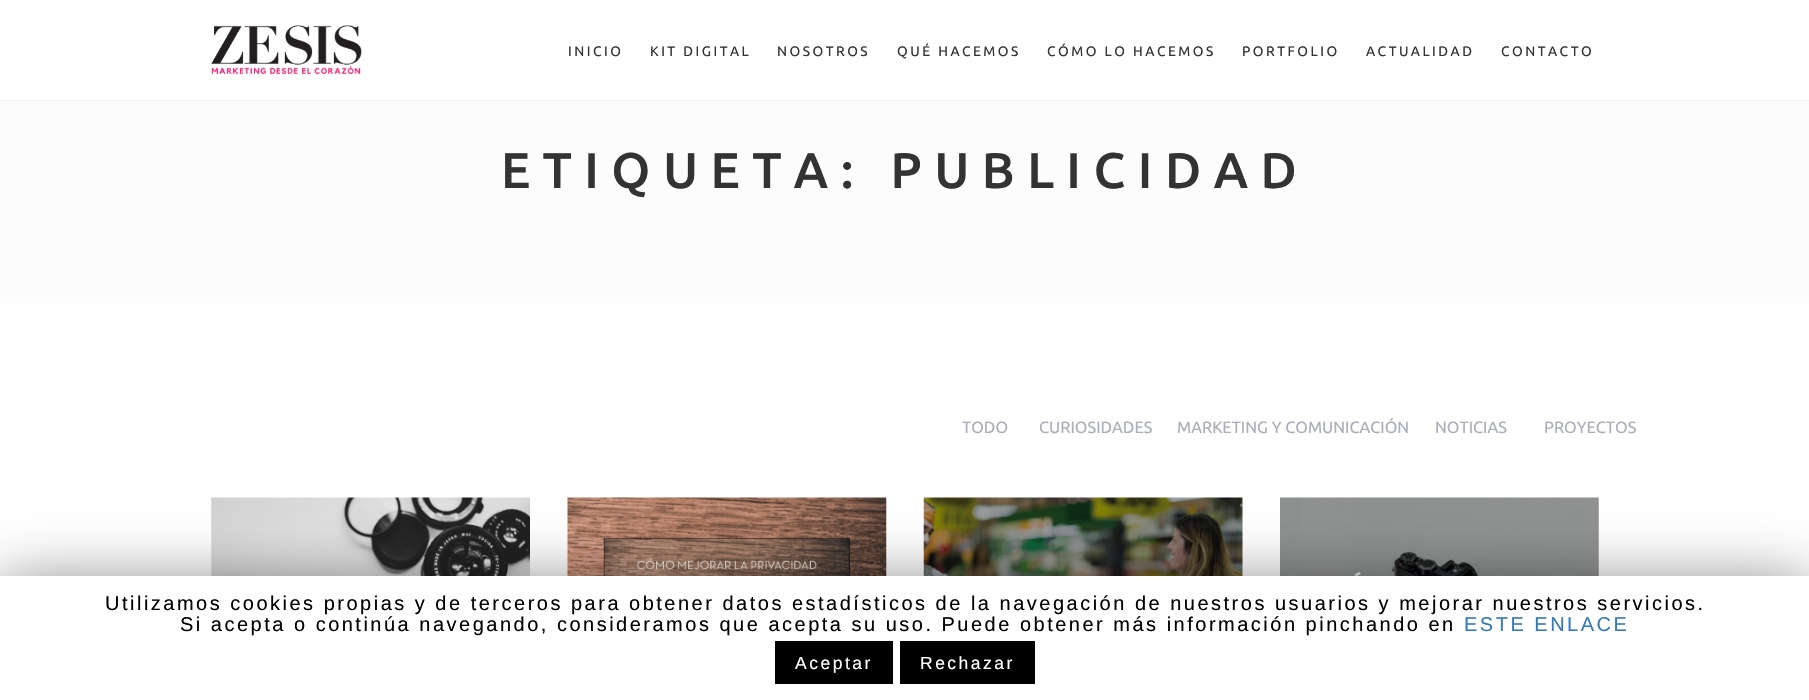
#include "include/core/SkBlurTypes.h"
#include "include/core/SkCanvas.h"
#include "include/core/SkData.h"
#include "include/core/SkFont.h"
#include "include/core/SkFontMgr.h"
#include "include/core/SkImage.h"
#include "include/core/SkMaskFilter.h"
#include "include/core/SkPaint.h"
#include "include/core/SkPathBuilder.h"
#include "include/core/SkTextBlob.h"
#include "include/effects/SkDashPathEffect.h"
#include "include/effects/SkGradientShader.h"
#include "include/utils/SkParsePath.h"

extern sk_sp<SkFontMgr> fontMgr;

void draw(SkCanvas* canvas) {
  SkPaint p;
  p.setAntiAlias(true);
  auto spacedText = [&](const char* s, float x, float y, const SkFont& font, const SkPaint& ink, float letter, float word) {
    std::vector<SkGlyphID> glyphs(font.countText(s, strlen(s), SkTextEncoding::kUTF8));
    std::vector<float> xs(glyphs.size());
    font.textToGlyphs(s, strlen(s), SkTextEncoding::kUTF8, glyphs);
    font.getXPos(glyphs, xs, x);
    float extra = 0;
    for (size_t i = 0; i < glyphs.size(); i++) {
      xs[i] += extra;
      extra += letter + word * (glyphs[i] == font.unicharToGlyph(' '));
    }
    canvas->drawTextBlob(SkTextBlob::MakeFromPosHGlyphs(glyphs, xs, y, font), 0, 0, ink);
  };
  canvas->clear(SK_ColorWHITE);
  p.setColor(SkColorSetRGB(245, 245, 245));
  canvas->drawRect(SkRect::MakeLTRB(0, 100, 1809, 101), p);
  canvas->drawImageRect(SkImages::DeferredFromEncodedData(SkData::MakeFromFileName("images/1.png")), SkRect::MakeLTRB(211, 25, 362, 75), SkSamplingOptions());
  p.setColor(SkColorSetRGB(252, 252, 252));
  canvas->drawRect(SkRect::MakeLTRB(0, 101, 1809, 303), p);
  canvas->drawImageRect(SkImages::DeferredFromEncodedData(SkData::MakeFromFileName("images/2.png")), SkRect::MakeLTRB(211, 497, 530, 576), SkSamplingOptions());
  canvas->drawImageRect(SkImages::DeferredFromEncodedData(SkData::MakeFromFileName("images/3.png")), SkRect::MakeLTRB(567, 497, 887, 576), SkSamplingOptions());
  canvas->drawImageRect(SkImages::DeferredFromEncodedData(SkData::MakeFromFileName("images/4.png")), SkRect::MakeLTRB(923, 497, 1243, 576), SkSamplingOptions());
  canvas->drawImageRect(SkImages::DeferredFromEncodedData(SkData::MakeFromFileName("images/5.png")), SkRect::MakeLTRB(1280, 497, 1599, 576), SkSamplingOptions());
  p.setColor(SkColorSetARGB(128, 0, 0, 0));
  p.setMaskFilter(SkMaskFilter::MakeBlur(kNormal_SkBlurStyle, 31));
  canvas->drawRect(SkRect::MakeLTRB(0, 583, 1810, 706), p);
  p.setMaskFilter(nullptr);
  p.setColor(SK_ColorWHITE);
  canvas->drawRect(SkRect::MakeLTRB(0, 576, 1809, 700), p);
  p.setColor(SK_ColorBLACK);
  canvas->drawRect(SkRect::MakeLTRB(775, 641, 893, 684), p);
  canvas->drawRect(SkRect::MakeLTRB(900, 641, 1035, 684), p);
  SkFont font1(fontMgr->matchFamilyStyle("Ubuntu", SkFontStyle::Normal()), 13.75f);
  font1.setSubpixel(true);
  p.setColor(SkColorSetRGB(51, 51, 51));
  spacedText("INICIO", 568, 56, font1, p, 2.5f, 0);
  spacedText("KIT DIGITAL", 650, 56, font1, p, 2.5f, 0);
  spacedText("NOSOTROS", 777, 56, font1, p, 2.5f, 0);
  spacedText("QUÉ HACEMOS", 897, 56, font1, p, 2.5f, 0);
  spacedText("CÓMO LO HACEMOS", 1047, 56, font1, p, 2.5f, 0);
  spacedText("PORTFOLIO", 1242, 56, font1, p, 2.5f, 0);
  spacedText("ACTUALIDAD", 1366, 56, font1, p, 2.5f, 0);
  spacedText("CONTACTO", 1501, 56, font1, p, 2.5f, 0);
  SkFont font2(fontMgr->matchFamilyStyle("Ubuntu", SkFontStyle(500, SkFontStyle::kNormal_Width, SkFontStyle::kUpright_Slant)), 50);
  font2.setSubpixel(true);
  spacedText("ETIQUETA: PUBLICIDAD", 501, 188, font2, p, 12.5f, 0);
  SkFont font3(fontMgr->matchFamilyStyle("Ubuntu", SkFontStyle::Normal()), 16.25f);
  font3.setSubpixel(true);
  p.setColor(SkColorSetRGB(172, 175, 186));
  canvas->drawString("TODO", 962, 433, font3, p);
  canvas->drawString("CURIOSIDADES", 1039, 433, font3, p);
  canvas->drawString("MARKETING Y COMUNICACIÓN", 1177, 433, font3, p);
  canvas->drawString("NOTICIAS", 1435, 433, font3, p);
  canvas->drawString("PROYECTOS", 1544, 433, font3, p);
  SkFont font4(fontMgr->matchFamilyStyle("Liberation Sans", SkFontStyle::Normal()), 20);
  font4.setSubpixel(true);
  p.setColor(SK_ColorBLACK);
  spacedText("Utilizamos cookies propias y de terceros para obtener datos estadísticos de la navegación de nuestros usuarios y mejorar nuestros servicios.", 105, 610, font4, p, 2.5f, 0);
  spacedText("Si acepta o continúa navegando, consideramos que acepta su uso. Puede obtener más información pinchando en", 180, 631, font4, p, 2.5f, 0);
  p.setColor(SkColorSetRGB(51, 122, 183));
  spacedText("ESTE ENLACE", 1464, 631, font4, p, 2.5f, 0);
  SkFont font5(fontMgr->matchFamilyStyle("Liberation Sans", SkFontStyle::Normal()), 17.5f);
  font5.setSubpixel(true);
  p.setColor(SK_ColorWHITE);
  spacedText("Aceptar", 795, 669, font5, p, 2.5f, 0);
  spacedText("Rechazar", 920, 669, font5, p, 2.5f, 0);
}
